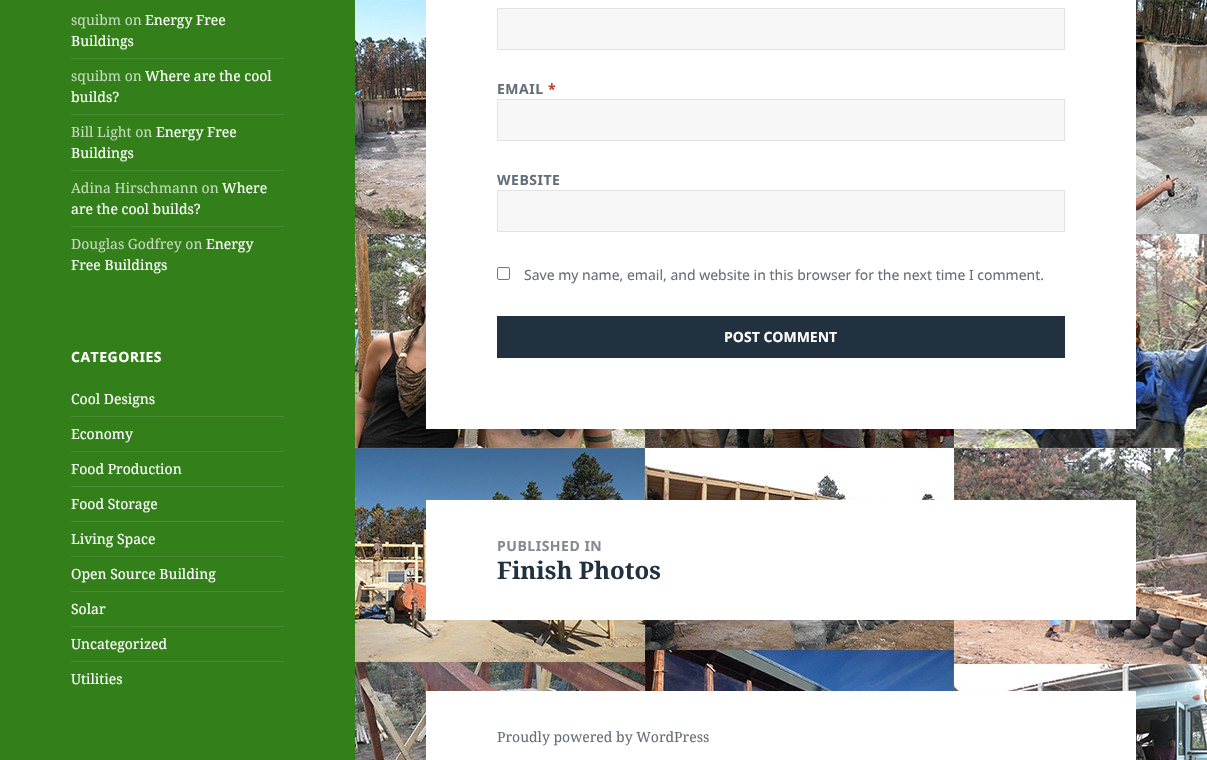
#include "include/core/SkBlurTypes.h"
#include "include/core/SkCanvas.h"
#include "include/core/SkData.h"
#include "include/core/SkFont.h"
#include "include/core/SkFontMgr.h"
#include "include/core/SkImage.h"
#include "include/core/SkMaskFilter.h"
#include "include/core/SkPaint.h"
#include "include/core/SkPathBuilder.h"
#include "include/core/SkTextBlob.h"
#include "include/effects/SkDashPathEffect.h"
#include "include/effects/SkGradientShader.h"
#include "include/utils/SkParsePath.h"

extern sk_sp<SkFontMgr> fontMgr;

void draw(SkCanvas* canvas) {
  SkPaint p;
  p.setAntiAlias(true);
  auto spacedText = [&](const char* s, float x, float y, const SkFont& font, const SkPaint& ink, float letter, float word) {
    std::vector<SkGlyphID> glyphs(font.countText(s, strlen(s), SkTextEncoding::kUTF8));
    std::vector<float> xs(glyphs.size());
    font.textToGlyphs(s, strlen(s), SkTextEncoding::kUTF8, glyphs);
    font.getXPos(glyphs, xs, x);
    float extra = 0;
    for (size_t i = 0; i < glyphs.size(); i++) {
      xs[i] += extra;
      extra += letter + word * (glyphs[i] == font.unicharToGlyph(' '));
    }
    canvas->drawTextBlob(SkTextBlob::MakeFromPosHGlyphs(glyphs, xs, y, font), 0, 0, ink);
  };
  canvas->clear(SK_ColorWHITE);
  canvas->drawImageRect(SkImages::DeferredFromEncodedData(SkData::MakeFromFileName("images/1.png")), SkRect::MakeLTRB(355, 0, 1207, 760), SkSamplingOptions());
  p.setColor(SkColorSetRGB(51, 127, 26));
  canvas->drawRect(SkRect::MakeLTRB(0, 0, 355, 760), p);
  p.setColor(SkColorSetRGB(71, 140, 49));
  canvas->drawRect(SkRect::MakeLTRB(71, 58, 284, 59), p);
  canvas->drawRect(SkRect::MakeLTRB(71, 114, 284, 115), p);
  canvas->drawRect(SkRect::MakeLTRB(71, 170, 284, 171), p);
  canvas->drawRect(SkRect::MakeLTRB(71, 226, 284, 227), p);
  canvas->drawRect(SkRect::MakeLTRB(71, 416, 284, 417), p);
  canvas->drawRect(SkRect::MakeLTRB(71, 451, 284, 452), p);
  canvas->drawRect(SkRect::MakeLTRB(71, 486, 284, 487), p);
  canvas->drawRect(SkRect::MakeLTRB(71, 521, 284, 522), p);
  canvas->drawRect(SkRect::MakeLTRB(71, 556, 284, 557), p);
  canvas->drawRect(SkRect::MakeLTRB(71, 591, 284, 592), p);
  canvas->drawRect(SkRect::MakeLTRB(71, 626, 284, 627), p);
  canvas->drawRect(SkRect::MakeLTRB(71, 661, 284, 662), p);
  p.setColor(SK_ColorWHITE);
  canvas->drawRect(SkRect::MakeLTRB(426, 0, 1136, 429), p);
  p.setColor(SkColorSetRGB(247, 247, 247));
  canvas->drawRect(SkRect::MakeLTRB(497.5f, 8.5f, 1064.5f, 49.5f), p);
  p.setStyle(SkPaint::kStroke_Style);
  p.setStrokeWidth(1);
  p.setColor(SkColorSetRGB(226, 227, 229));
  canvas->drawRect(SkRect::MakeLTRB(497.5f, 8.5f, 1064.5f, 49.5f), p);
  p.setStyle(SkPaint::kFill_Style);
  p.setColor(SkColorSetRGB(247, 247, 247));
  canvas->drawRect(SkRect::MakeLTRB(497.5f, 99.5f, 1064.5f, 140.5f), p);
  p.setStyle(SkPaint::kStroke_Style);
  p.setColor(SkColorSetRGB(226, 227, 229));
  canvas->drawRect(SkRect::MakeLTRB(497.5f, 99.5f, 1064.5f, 140.5f), p);
  p.setStyle(SkPaint::kFill_Style);
  p.setColor(SkColorSetRGB(247, 247, 247));
  canvas->drawRect(SkRect::MakeLTRB(497.5f, 190.5f, 1064.5f, 231.5f), p);
  p.setStyle(SkPaint::kStroke_Style);
  p.setColor(SkColorSetRGB(226, 227, 229));
  canvas->drawRect(SkRect::MakeLTRB(497.5f, 190.5f, 1064.5f, 231.5f), p);
  p.setColor(SkColorSetRGB(118, 118, 118));
  canvas->drawRoundRect(SkRect::MakeLTRB(497.5f, 267.5f, 509.5f, 279.5f), 1.5f, 1.5f, p);
  p.setStyle(SkPaint::kFill_Style);
  p.setColor(SkColorSetRGB(34, 49, 63));
  canvas->drawRect(SkRect::MakeLTRB(497, 316, 1065, 358), p);
  p.setColor(SK_ColorWHITE);
  canvas->drawRect(SkRect::MakeLTRB(426, 500, 1136, 620), p);
  canvas->drawRect(SkRect::MakeLTRB(426, 691, 1136, 760), p);
  SkFont font1(fontMgr->matchFamilyStyle("Noto Serif", SkFontStyle::Normal()), 14);
  font1.setSubpixel(true);
  p.setColor(SkColorSetRGB(194, 217, 186));
  canvas->drawString("squibm on", 71, 25, font1, p);
  p.setColor(SK_ColorWHITE);
  canvas->drawString("Energy Free", 145, 25, font1, p);
  canvas->drawString("Buildings", 71, 46, font1, p);
  p.setColor(SkColorSetRGB(194, 217, 186));
  canvas->drawString("squibm on", 71, 81, font1, p);
  p.setColor(SK_ColorWHITE);
  canvas->drawString("Where are the cool", 145, 81, font1, p);
  canvas->drawString("builds?", 71, 102, font1, p);
  p.setColor(SkColorSetRGB(194, 217, 186));
  canvas->drawString("Bill Light on", 71, 137, font1, p);
  p.setColor(SK_ColorWHITE);
  canvas->drawString("Energy Free", 156, 137, font1, p);
  canvas->drawString("Buildings", 71, 158, font1, p);
  p.setColor(SkColorSetRGB(194, 217, 186));
  canvas->drawString("Adina Hirschmann on", 71, 193, font1, p);
  p.setColor(SK_ColorWHITE);
  canvas->drawString("Where", 222, 193, font1, p);
  canvas->drawString("are the cool builds?", 71, 214, font1, p);
  p.setColor(SkColorSetRGB(194, 217, 186));
  canvas->drawString("Douglas Godfrey on", 71, 249, font1, p);
  p.setColor(SK_ColorWHITE);
  canvas->drawString("Energy", 206, 249, font1, p);
  canvas->drawString("Free Buildings", 71, 270, font1, p);
  SkFont font2(fontMgr->matchFamilyStyle("Noto Sans", SkFontStyle::Bold()), 14);
  font2.setSubpixel(true);
  spacedText("CATEGORIES", 71, 362, font2, p, 0.5f, 0);
  canvas->drawString("Cool Designs", 71, 404, font1, p);
  canvas->drawString("Economy", 71, 439, font1, p);
  canvas->drawString("Food Production", 71, 474, font1, p);
  canvas->drawString("Food Storage", 71, 509, font1, p);
  canvas->drawString("Living Space", 71, 544, font1, p);
  canvas->drawString("Open Source Building", 71, 579, font1, p);
  canvas->drawString("Solar", 71, 614, font1, p);
  canvas->drawString("Uncategorized", 71, 649, font1, p);
  canvas->drawString("Utilities", 71, 684, font1, p);
  p.setColor(SkColorSetRGB(100, 111, 121));
  spacedText("EMAIL", 497, 94, font2, p, 0.5f, 0);
  p.setColor(SkColorSetRGB(192, 57, 43));
  spacedText("*", 548, 94, font2, p, 0.5f, 0);
  p.setColor(SkColorSetRGB(100, 111, 121));
  spacedText("WEBSITE", 497, 185, font2, p, 0.5f, 0);
  SkFont font3(fontMgr->matchFamilyStyle("Noto Sans", SkFontStyle::Normal()), 14);
  font3.setSubpixel(true);
  canvas->drawString("Save my name, email, and website in this browser for the next time I comment.", 524, 280, font3, p);
  p.setColor(SK_ColorWHITE);
  canvas->drawString("POST COMMENT", 724, 342, font2, p);
  p.setColor(SkColorSetRGB(131, 140, 147));
  spacedText("PUBLISHED IN", 497, 551, font2, p, 0.5f, 0);
  SkFont font4(fontMgr->matchFamilyStyle("Noto Serif", SkFontStyle::Bold()), 24);
  font4.setSubpixel(true);
  p.setColor(SkColorSetRGB(34, 49, 63));
  canvas->drawString("Finish Photos", 497, 579, font4, p);
  p.setColor(SkColorSetRGB(100, 111, 121));
  canvas->drawString("Proudly powered by WordPress", 497, 742, font1, p);
}
